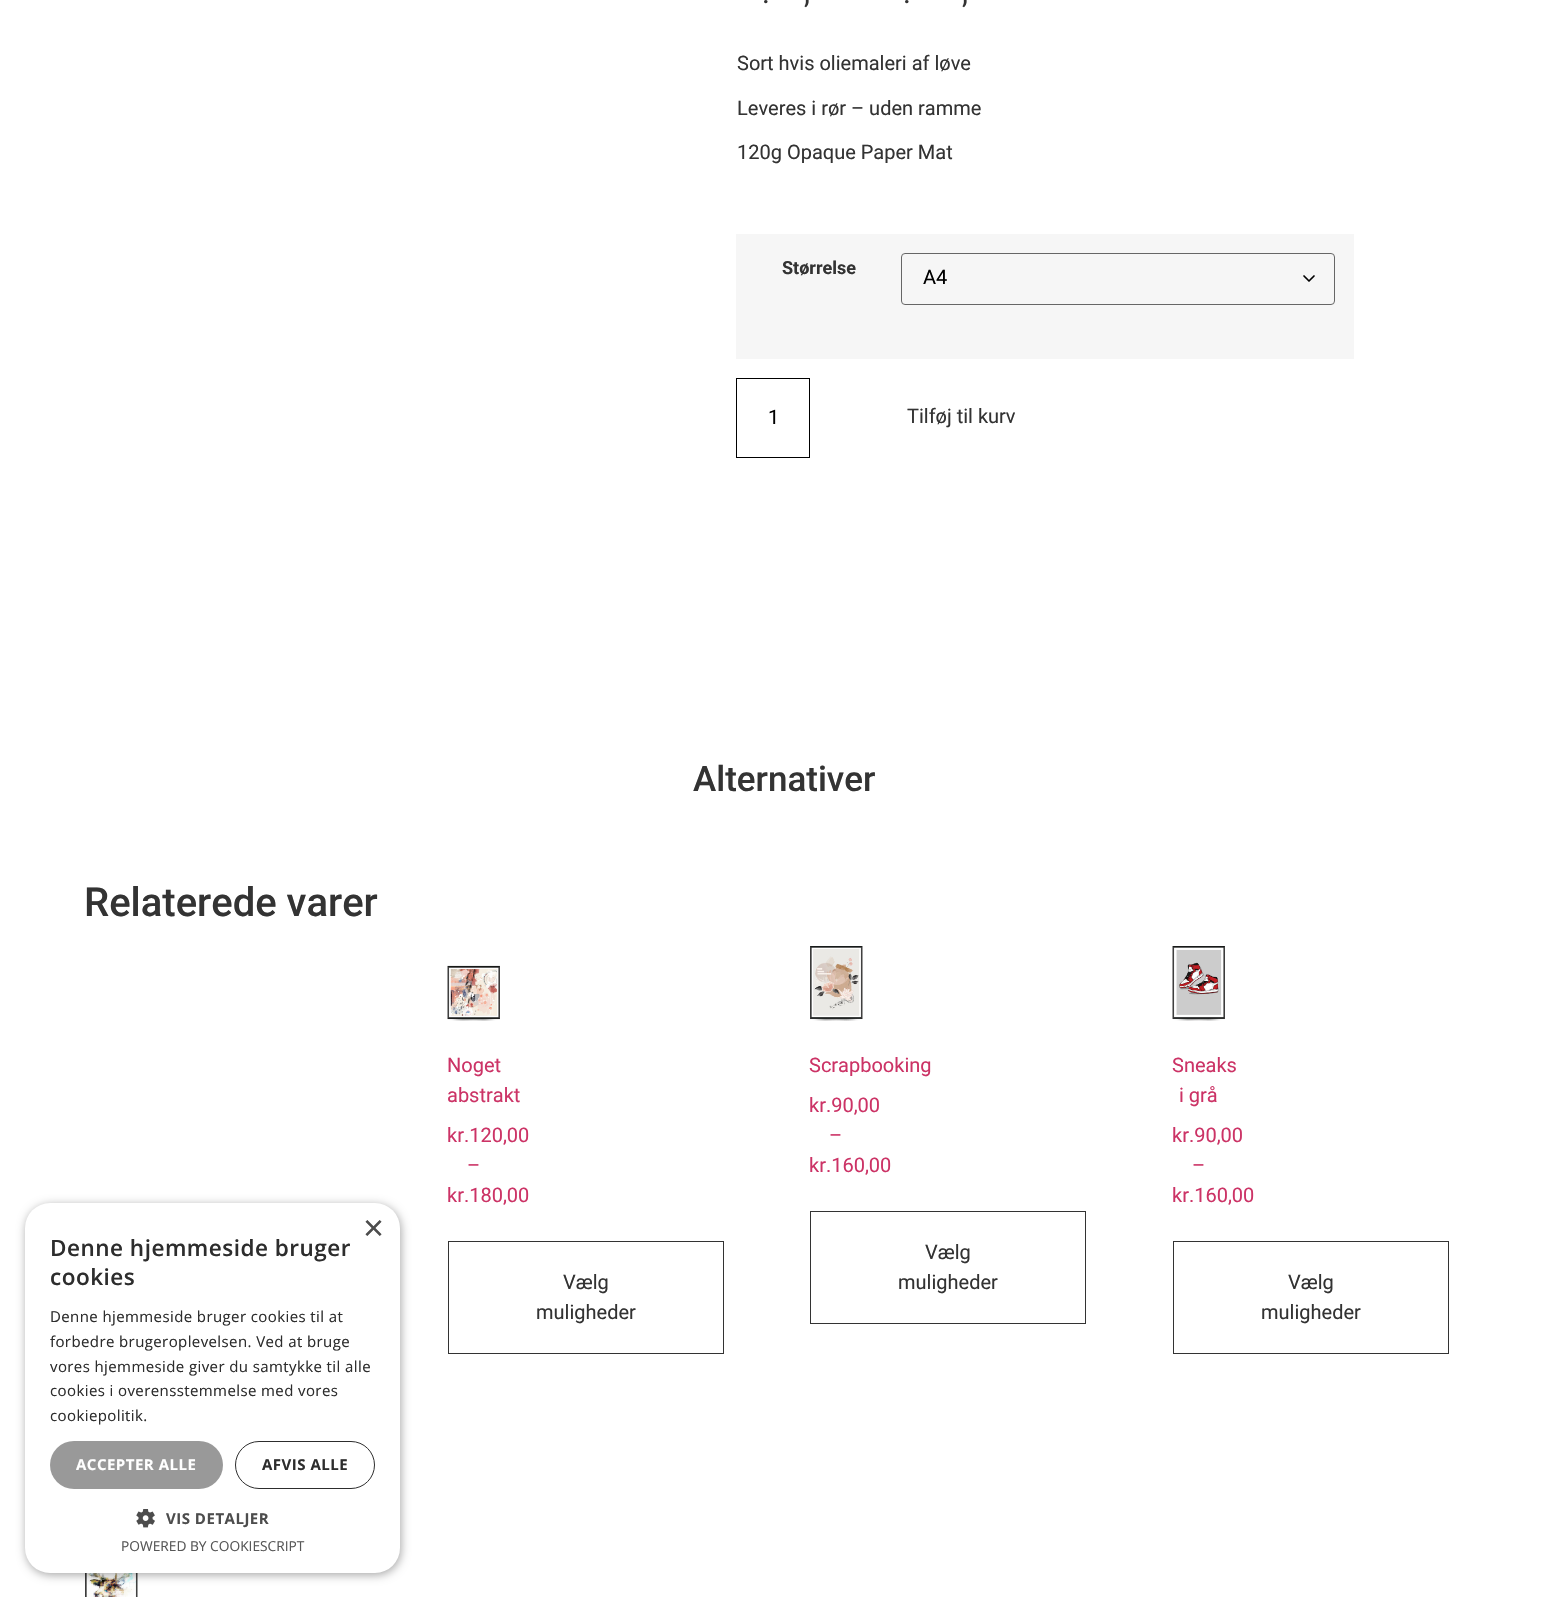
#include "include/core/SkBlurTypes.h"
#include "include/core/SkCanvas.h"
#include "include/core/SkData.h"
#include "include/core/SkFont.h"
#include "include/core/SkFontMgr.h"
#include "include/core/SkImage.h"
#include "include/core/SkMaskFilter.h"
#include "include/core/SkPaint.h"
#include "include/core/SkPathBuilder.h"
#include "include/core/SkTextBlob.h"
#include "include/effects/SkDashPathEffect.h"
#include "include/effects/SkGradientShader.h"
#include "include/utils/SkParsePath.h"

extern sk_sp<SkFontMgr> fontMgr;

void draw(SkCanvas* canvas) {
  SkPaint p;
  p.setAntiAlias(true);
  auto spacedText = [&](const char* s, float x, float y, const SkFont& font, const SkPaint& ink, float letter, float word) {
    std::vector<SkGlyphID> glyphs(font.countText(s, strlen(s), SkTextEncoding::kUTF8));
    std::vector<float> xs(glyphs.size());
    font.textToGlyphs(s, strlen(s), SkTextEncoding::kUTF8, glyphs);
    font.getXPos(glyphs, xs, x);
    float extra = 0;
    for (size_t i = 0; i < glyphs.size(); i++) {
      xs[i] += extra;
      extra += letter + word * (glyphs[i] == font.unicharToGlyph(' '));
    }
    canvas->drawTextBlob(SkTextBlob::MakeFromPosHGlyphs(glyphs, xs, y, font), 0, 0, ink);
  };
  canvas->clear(SK_ColorWHITE);
  p.setColor(SkColorSetRGB(246, 246, 246));
  canvas->drawRect(SkRect::MakeLTRB(736, 234, 1354, 359), p);
  p.setStyle(SkPaint::kStroke_Style);
  p.setStrokeWidth(1.7f);
  p.setStrokeCap(SkPaint::kRound_Cap);
  p.setStrokeJoin(SkPaint::kRound_Join);
  p.setColor(SK_ColorBLACK);
  canvas->drawPath(SkPathBuilder().moveTo(1304, 276).lineTo(1309, 281).lineTo(1314, 276).detach(), p);
  p.setStrokeWidth(1);
  p.setStrokeCap(SkPaint::kButt_Cap);
  p.setStrokeJoin(SkPaint::kMiter_Join);
  p.setColor(SkColorSetRGB(102, 102, 102));
  canvas->drawRoundRect(SkRect::MakeLTRB(901.5f, 253.5f, 1334.5f, 304.5f), 3.5f, 3.5f, p);
  p.setColor(SK_ColorBLACK);
  canvas->drawRect(SkRect::MakeLTRB(736.5f, 378.5f, 809.5f, 457.5f), p);
  canvas->drawImageRect(SkImages::DeferredFromEncodedData(SkData::MakeFromFileName("images/1.png")), SkRect::MakeLTRB(447, 965, 500, 1021), SkSamplingOptions());
  p.setColor(SkColorSetRGB(51, 51, 51));
  canvas->drawRect(SkRect::MakeLTRB(448.5f, 1241.5f, 723.5f, 1353.5f), p);
  canvas->drawImageRect(SkImages::DeferredFromEncodedData(SkData::MakeFromFileName("images/2.png")), SkRect::MakeLTRB(810, 946, 863, 1021), SkSamplingOptions());
  canvas->drawRect(SkRect::MakeLTRB(810.5f, 1211.5f, 1085.5f, 1323.5f), p);
  canvas->drawImageRect(SkImages::DeferredFromEncodedData(SkData::MakeFromFileName("images/3.png")), SkRect::MakeLTRB(1172, 946, 1225, 1021), SkSamplingOptions());
  canvas->drawRect(SkRect::MakeLTRB(1173.5f, 1241.5f, 1448.5f, 1353.5f), p);
  canvas->drawImageRect(SkImages::DeferredFromEncodedData(SkData::MakeFromFileName("images/4.png")), SkRect::MakeLTRB(85, 1573, 138, 1597), SkSamplingOptions());
  p.setStyle(SkPaint::kFill_Style);
  p.setColor(SkColorSetARGB(89, 0, 0, 0));
  p.setMaskFilter(SkMaskFilter::MakeBlur(kNormal_SkBlurStyle, 5));
  canvas->drawRoundRect(SkRect::MakeLTRB(26, 1205, 401, 1575), 25, 25, p);
  p.setMaskFilter(nullptr);
  p.setColor(SK_ColorWHITE);
  canvas->drawRoundRect(SkRect::MakeLTRB(25, 1203, 400, 1573), 25, 25, p);
  p.setColor(SkColorSetRGB(153, 153, 153));
  canvas->drawRoundRect(SkRect::MakeLTRB(50, 1441, 223, 1489), 24, 24, p);
  p.setStyle(SkPaint::kStroke_Style);
  p.setColor(SkColorSetRGB(45, 45, 45));
  canvas->drawRoundRect(SkRect::MakeLTRB(235.5f, 1441.5f, 374.5f, 1488.5f), 23.5f, 23.5f, p);
  canvas->drawImageRect(SkImages::DeferredFromEncodedData(SkData::MakeFromFileName("images/5.png")), SkRect::MakeLTRB(136, 1509, 155, 1528), SkSamplingOptions());
  SkFont font1(fontMgr->matchFamilyStyle("Roboto", SkFontStyle::Normal()), 30);
  font1.setSubpixel(true);
  p.setStyle(SkPaint::kFill_Style);
  p.setColor(SkColorSetRGB(51, 51, 51));
  canvas->drawString(".", 762, 3, font1, p);
  canvas->drawString(",", 804, 3, font1, p);
  canvas->drawString(".", 903, 3, font1, p);
  canvas->drawString(",", 962, 3, font1, p);
  SkFont font2(fontMgr->matchFamilyStyle("Roboto", SkFontStyle::Normal()), 20);
  font2.setSubpixel(true);
  canvas->drawString("Sort hvis oliemaleri af løve", 737, 70, font2, p);
  canvas->drawString("Leveres i rør – uden ramme", 737, 115, font2, p);
  canvas->drawString("120g Opaque Paper Mat", 737, 159, font2, p);
  SkFont font3(fontMgr->matchFamilyStyle("Roboto", SkFontStyle::Bold()), 18);
  font3.setSubpixel(true);
  canvas->drawString("Størrelse", 782, 274, font3, p);
  p.setColor(SK_ColorBLACK);
  canvas->drawString("A4", 923, 284, font2, p);
  canvas->drawString("1", 768, 424, font2, p);
  p.setColor(SkColorSetRGB(51, 51, 51));
  canvas->drawString("Tilføj til kurv", 907, 423, font2, p);
  SkFont font4(fontMgr->matchFamilyStyle("Roboto", SkFontStyle(500, SkFontStyle::kNormal_Width, SkFontStyle::kUpright_Slant)), 35);
  font4.setSubpixel(true);
  canvas->drawString("Alternativer", 693, 791, font4, p);
  SkFont font5(fontMgr->matchFamilyStyle("Roboto", SkFontStyle(500, SkFontStyle::kNormal_Width, SkFontStyle::kUpright_Slant)), 40);
  font5.setSubpixel(true);
  canvas->drawString("Relaterede varer", 84, 916, font5, p);
  p.setColor(SkColorSetRGB(204, 51, 102));
  canvas->drawString("Noget", 447, 1072, font2, p);
  canvas->drawString("abstrakt", 447, 1102, font2, p);
  canvas->drawString("kr.120,00", 447, 1142, font2, p);
  canvas->drawString("–", 467, 1172, font2, p);
  canvas->drawString("kr.180,00", 447, 1202, font2, p);
  p.setColor(SkColorSetRGB(51, 51, 51));
  canvas->drawString("Vælg", 563, 1289, font2, p);
  canvas->drawString("muligheder", 536, 1319, font2, p);
  p.setColor(SkColorSetRGB(204, 51, 102));
  canvas->drawString("Scrapbooking", 809, 1072, font2, p);
  canvas->drawString("kr.90,00", 809, 1112, font2, p);
  canvas->drawString("–", 829, 1142, font2, p);
  canvas->drawString("kr.160,00", 809, 1172, font2, p);
  p.setColor(SkColorSetRGB(51, 51, 51));
  canvas->drawString("Vælg", 925, 1259, font2, p);
  canvas->drawString("muligheder", 898, 1289, font2, p);
  p.setColor(SkColorSetRGB(204, 51, 102));
  canvas->drawString("Sneaks", 1172, 1072, font2, p);
  canvas->drawString("i grå", 1179, 1102, font2, p);
  canvas->drawString("kr.90,00", 1172, 1142, font2, p);
  canvas->drawString("–", 1192, 1172, font2, p);
  canvas->drawString("kr.160,00", 1172, 1202, font2, p);
  p.setColor(SkColorSetRGB(51, 51, 51));
  canvas->drawString("Vælg", 1288, 1289, font2, p);
  canvas->drawString("muligheder", 1261, 1319, font2, p);
  SkFont font6(fontMgr->matchFamilyStyle("Liberation Sans", SkFontStyle::Normal()), 36);
  font6.setSubpixel(true);
  p.setColor(SkColorSetRGB(77, 77, 77));
  canvas->drawString("×", 363, 1240, font6, p);
  SkFont font7(fontMgr->matchFamilyStyle("Open Sans", SkFontStyle(600, SkFontStyle::kNormal_Width, SkFontStyle::kUpright_Slant)), 22.5f);
  font7.setSubpixel(true);
  p.setColor(SkColorSetRGB(45, 45, 45));
  spacedText("Denne hjemmeside bruger", 50, 1256, font7, p, 0.5f, 0);
  spacedText("cookies", 50, 1285, font7, p, 0.5f, 0);
  SkFont font8(fontMgr->matchFamilyStyle("Open Sans", SkFontStyle::Normal()), 15);
  font8.setSubpixel(true);
  spacedText("Denne hjemmeside bruger cookies til at", 50, 1322, font8, p, 0.4f, 0);
  spacedText("forbedre brugeroplevelsen. Ved at bruge", 50, 1347, font8, p, 0.4f, 0);
  spacedText("vores hjemmeside giver du samtykke til alle", 50, 1372, font8, p, 0.4f, 0);
  spacedText("cookies i overensstemmelse med vores", 50, 1396, font8, p, 0.4f, 0);
  spacedText("cookiepolitik.", 50, 1421, font8, p, 0.4f, 0);
  SkFont font9(fontMgr->matchFamilyStyle("Open Sans", SkFontStyle::Bold()), 15);
  font9.setSubpixel(true);
  p.setColor(SK_ColorWHITE);
  spacedText("ACCEPTER ALLE", 76, 1470, font9, p, 0.5f, 0);
  p.setColor(SkColorSetRGB(45, 45, 45));
  spacedText("AFVIS ALLE", 262, 1470, font9, p, 0.5f, 0);
  p.setColor(SkColorSetRGB(77, 77, 77));
  spacedText("VIS DETALJER", 166, 1524, font9, p, 0.5f, 0);
  SkFont font10(fontMgr->matchFamilyStyle("Open Sans", SkFontStyle::Normal()), 13.75f);
  font10.setSubpixel(true);
  p.setColor(SkColorSetRGB(87, 87, 87));
  canvas->drawString("POWERED BY COOKIESCRIPT", 121, 1551, font10, p);
}
